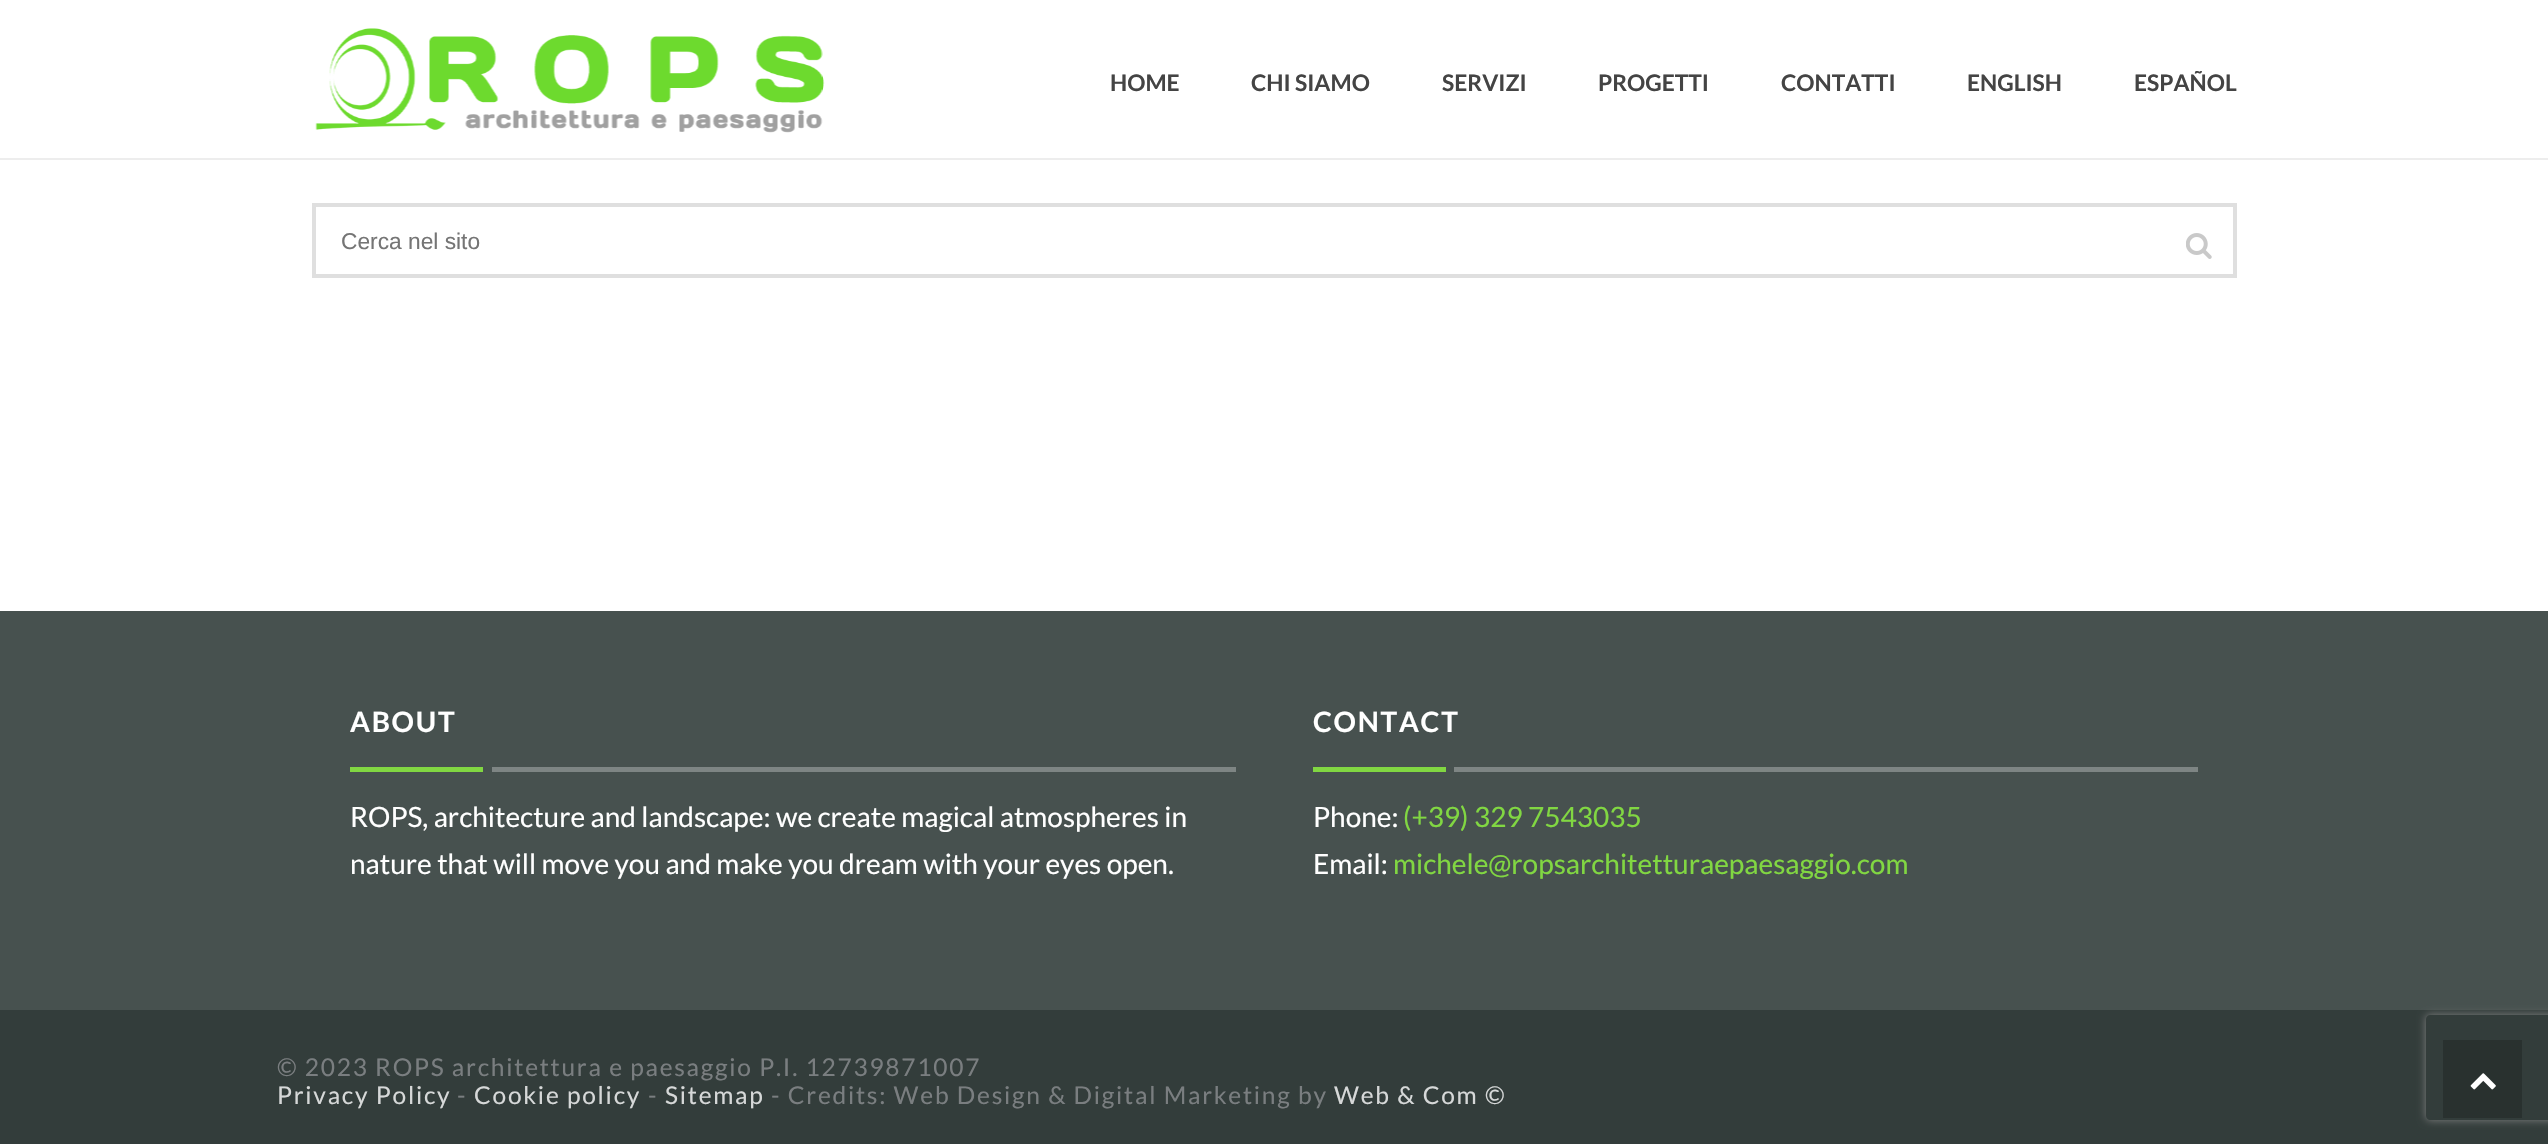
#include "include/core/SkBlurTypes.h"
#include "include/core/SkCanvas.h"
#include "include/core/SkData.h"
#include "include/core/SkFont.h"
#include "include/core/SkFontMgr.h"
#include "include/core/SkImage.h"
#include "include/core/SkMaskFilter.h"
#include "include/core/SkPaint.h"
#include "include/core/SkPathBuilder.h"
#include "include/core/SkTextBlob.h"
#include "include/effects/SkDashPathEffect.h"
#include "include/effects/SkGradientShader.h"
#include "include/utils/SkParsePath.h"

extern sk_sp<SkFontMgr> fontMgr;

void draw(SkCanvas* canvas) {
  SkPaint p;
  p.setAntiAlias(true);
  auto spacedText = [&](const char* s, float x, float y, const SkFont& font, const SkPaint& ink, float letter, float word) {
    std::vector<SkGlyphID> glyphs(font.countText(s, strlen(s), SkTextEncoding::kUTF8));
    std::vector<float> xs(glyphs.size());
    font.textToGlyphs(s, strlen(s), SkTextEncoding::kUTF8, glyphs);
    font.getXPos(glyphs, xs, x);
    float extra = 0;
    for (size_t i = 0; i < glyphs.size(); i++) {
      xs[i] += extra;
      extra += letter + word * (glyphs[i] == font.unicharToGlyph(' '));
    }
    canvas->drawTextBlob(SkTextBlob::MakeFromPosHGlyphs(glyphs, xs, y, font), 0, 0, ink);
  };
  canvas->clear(SK_ColorWHITE);
  p.setColor(SkColorSetRGB(237, 237, 237));
  canvas->drawRect(SkRect::MakeLTRB(0, 158, 2548, 160), p);
  canvas->drawImageRect(SkImages::DeferredFromEncodedData(SkData::MakeFromFileName("images/1.png")), SkRect::MakeLTRB(315, 28, 825, 133), SkSamplingOptions());
  p.setStyle(SkPaint::kStroke_Style);
  p.setStrokeWidth(4);
  p.setColor(SkColorSetRGB(223, 223, 223));
  canvas->drawRect(SkRect::MakeLTRB(314, 205, 2235, 276), p);
  canvas->drawImageRect(SkImages::DeferredFromEncodedData(SkData::MakeFromFileName("images/2.png")), SkRect::MakeLTRB(2186, 233, 2212, 259), SkSamplingOptions());
  p.setStyle(SkPaint::kFill_Style);
  p.setColor(SkColorSetRGB(71, 81, 79));
  canvas->drawRect(SkRect::MakeLTRB(0, 611, 2548, 1010), p);
  p.setColor(SkColorSetRGB(129, 215, 66));
  canvas->drawRect(SkRect::MakeLTRB(350, 767, 483, 772), p);
  p.setColor(SkColorSetRGB(126, 133, 132));
  canvas->drawRect(SkRect::MakeLTRB(492, 767, 1236, 772), p);
  p.setColor(SkColorSetRGB(129, 215, 66));
  canvas->drawRect(SkRect::MakeLTRB(1313, 767, 1446, 772), p);
  p.setColor(SkColorSetRGB(126, 133, 132));
  canvas->drawRect(SkRect::MakeLTRB(1454, 767, 2198, 772), p);
  p.setColor(SkColorSetRGB(51, 61, 59));
  canvas->drawRect(SkRect::MakeLTRB(0, 1010, 2548, 1144), p);
  canvas->save();
  canvas->clipPath(SkPathBuilder(SkPathFillType::kEvenOdd).moveTo(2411, 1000).lineTo(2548, 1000).lineTo(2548, 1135).lineTo(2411, 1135).close().moveTo(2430, 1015).lineTo(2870, 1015).cubicTo(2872, 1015, 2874, 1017, 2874, 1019).lineTo(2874, 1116).cubicTo(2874, 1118, 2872, 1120, 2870, 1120).lineTo(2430, 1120).cubicTo(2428, 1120, 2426, 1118, 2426, 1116).lineTo(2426, 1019).cubicTo(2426, 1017, 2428, 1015, 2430, 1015).close().detach(), true);
  p.setColor(SkColorSetRGB(128, 128, 128));
  p.setMaskFilter(SkMaskFilter::MakeBlur(kNormal_SkBlurStyle, 4.5f));
  canvas->drawRoundRect(SkRect::MakeLTRB(2426, 1015, 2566, 1120), 4, 4, p);
  p.setMaskFilter(nullptr);
  canvas->restore();
  p.setColor(SkColorSetRGB(41, 49, 47));
  canvas->drawRect(SkRect::MakeLTRB(2443, 1040, 2522, 1118), p);
  canvas->drawImageRect(SkImages::DeferredFromEncodedData(SkData::MakeFromFileName("images/3.png")), SkRect::MakeLTRB(2470, 1073, 2496, 1090), SkSamplingOptions());
  SkFont font1(fontMgr->matchFamilyStyle("Lato", SkFontStyle::Bold()), 22.75f);
  font1.setSubpixel(true);
  p.setColor(SkColorSetRGB(68, 68, 68));
  canvas->drawString("HOME", 1110, 91, font1, p);
  canvas->drawString("CHI SIAMO", 1251, 91, font1, p);
  canvas->drawString("SERVIZI", 1442, 91, font1, p);
  canvas->drawString("PROGETTI", 1598, 91, font1, p);
  canvas->drawString("CONTATTI", 1781, 91, font1, p);
  canvas->drawString("ENGLISH", 1967, 91, font1, p);
  canvas->drawString("ESPAÑOL", 2134, 91, font1, p);
  SkFont font2(fontMgr->matchFamilyStyle("Liberation Sans", SkFontStyle::Normal()), 22.75f);
  font2.setSubpixel(true);
  p.setColor(SkColorSetRGB(117, 117, 117));
  canvas->drawString("Cerca nel sito", 341, 249, font2, p);
  SkFont font3(fontMgr->matchFamilyStyle("Lato", SkFontStyle::Bold()), 28);
  font3.setSubpixel(true);
  p.setColor(SK_ColorWHITE);
  spacedText("ABOUT", 350, 732, font3, p, 1.75f, 0);
  SkFont font4(fontMgr->matchFamilyStyle("Lato", SkFontStyle::Normal()), 28);
  font4.setSubpixel(true);
  canvas->drawString("ROPS, architecture and landscape: we create magical atmospheres in", 350, 827, font4, p);
  canvas->drawString("nature that will move you and make you dream with your eyes open.", 350, 874, font4, p);
  spacedText("CONTACT", 1313, 732, font3, p, 1.75f, 0);
  canvas->drawString("Phone:", 1313, 827, font4, p);
  p.setColor(SkColorSetRGB(129, 215, 66));
  canvas->drawString("(+39) 329 7543035", 1403, 827, font4, p);
  p.setColor(SK_ColorWHITE);
  canvas->drawString("Email:", 1313, 874, font4, p);
  p.setColor(SkColorSetRGB(129, 215, 66));
  canvas->drawString("michele@ropsarchitetturaepaesaggio.com", 1393, 874, font4, p);
  SkFont font5(fontMgr->matchFamilyStyle("Lato", SkFontStyle::Normal()), 24.5f);
  font5.setSubpixel(true);
  p.setColor(SkColorSetRGB(122, 126, 128));
  spacedText("© 2023 ROPS architettura e paesaggio P.I. 12739871007", 277, 1076, font5, p, 1.75f, 0);
  p.setColor(SkColorSetRGB(214, 216, 216));
  spacedText("Privacy Policy", 277, 1104, font5, p, 1.75f, 0);
  p.setColor(SkColorSetRGB(122, 126, 128));
  spacedText("-", 457, 1104, font5, p, 1.75f, 0);
  p.setColor(SkColorSetRGB(214, 216, 216));
  spacedText("Cookie policy", 474, 1104, font5, p, 1.75f, 0);
  p.setColor(SkColorSetRGB(122, 126, 128));
  spacedText("-", 648, 1104, font5, p, 1.75f, 0);
  p.setColor(SkColorSetRGB(214, 216, 216));
  spacedText("Sitemap", 665, 1104, font5, p, 1.75f, 0);
  p.setColor(SkColorSetRGB(122, 126, 128));
  spacedText("- Credits: Web Design & Digital Marketing by", 771, 1104, font5, p, 1.75f, 0);
  p.setColor(SkColorSetRGB(214, 216, 216));
  spacedText("Web & Com ©", 1334, 1104, font5, p, 1.75f, 0);
}
